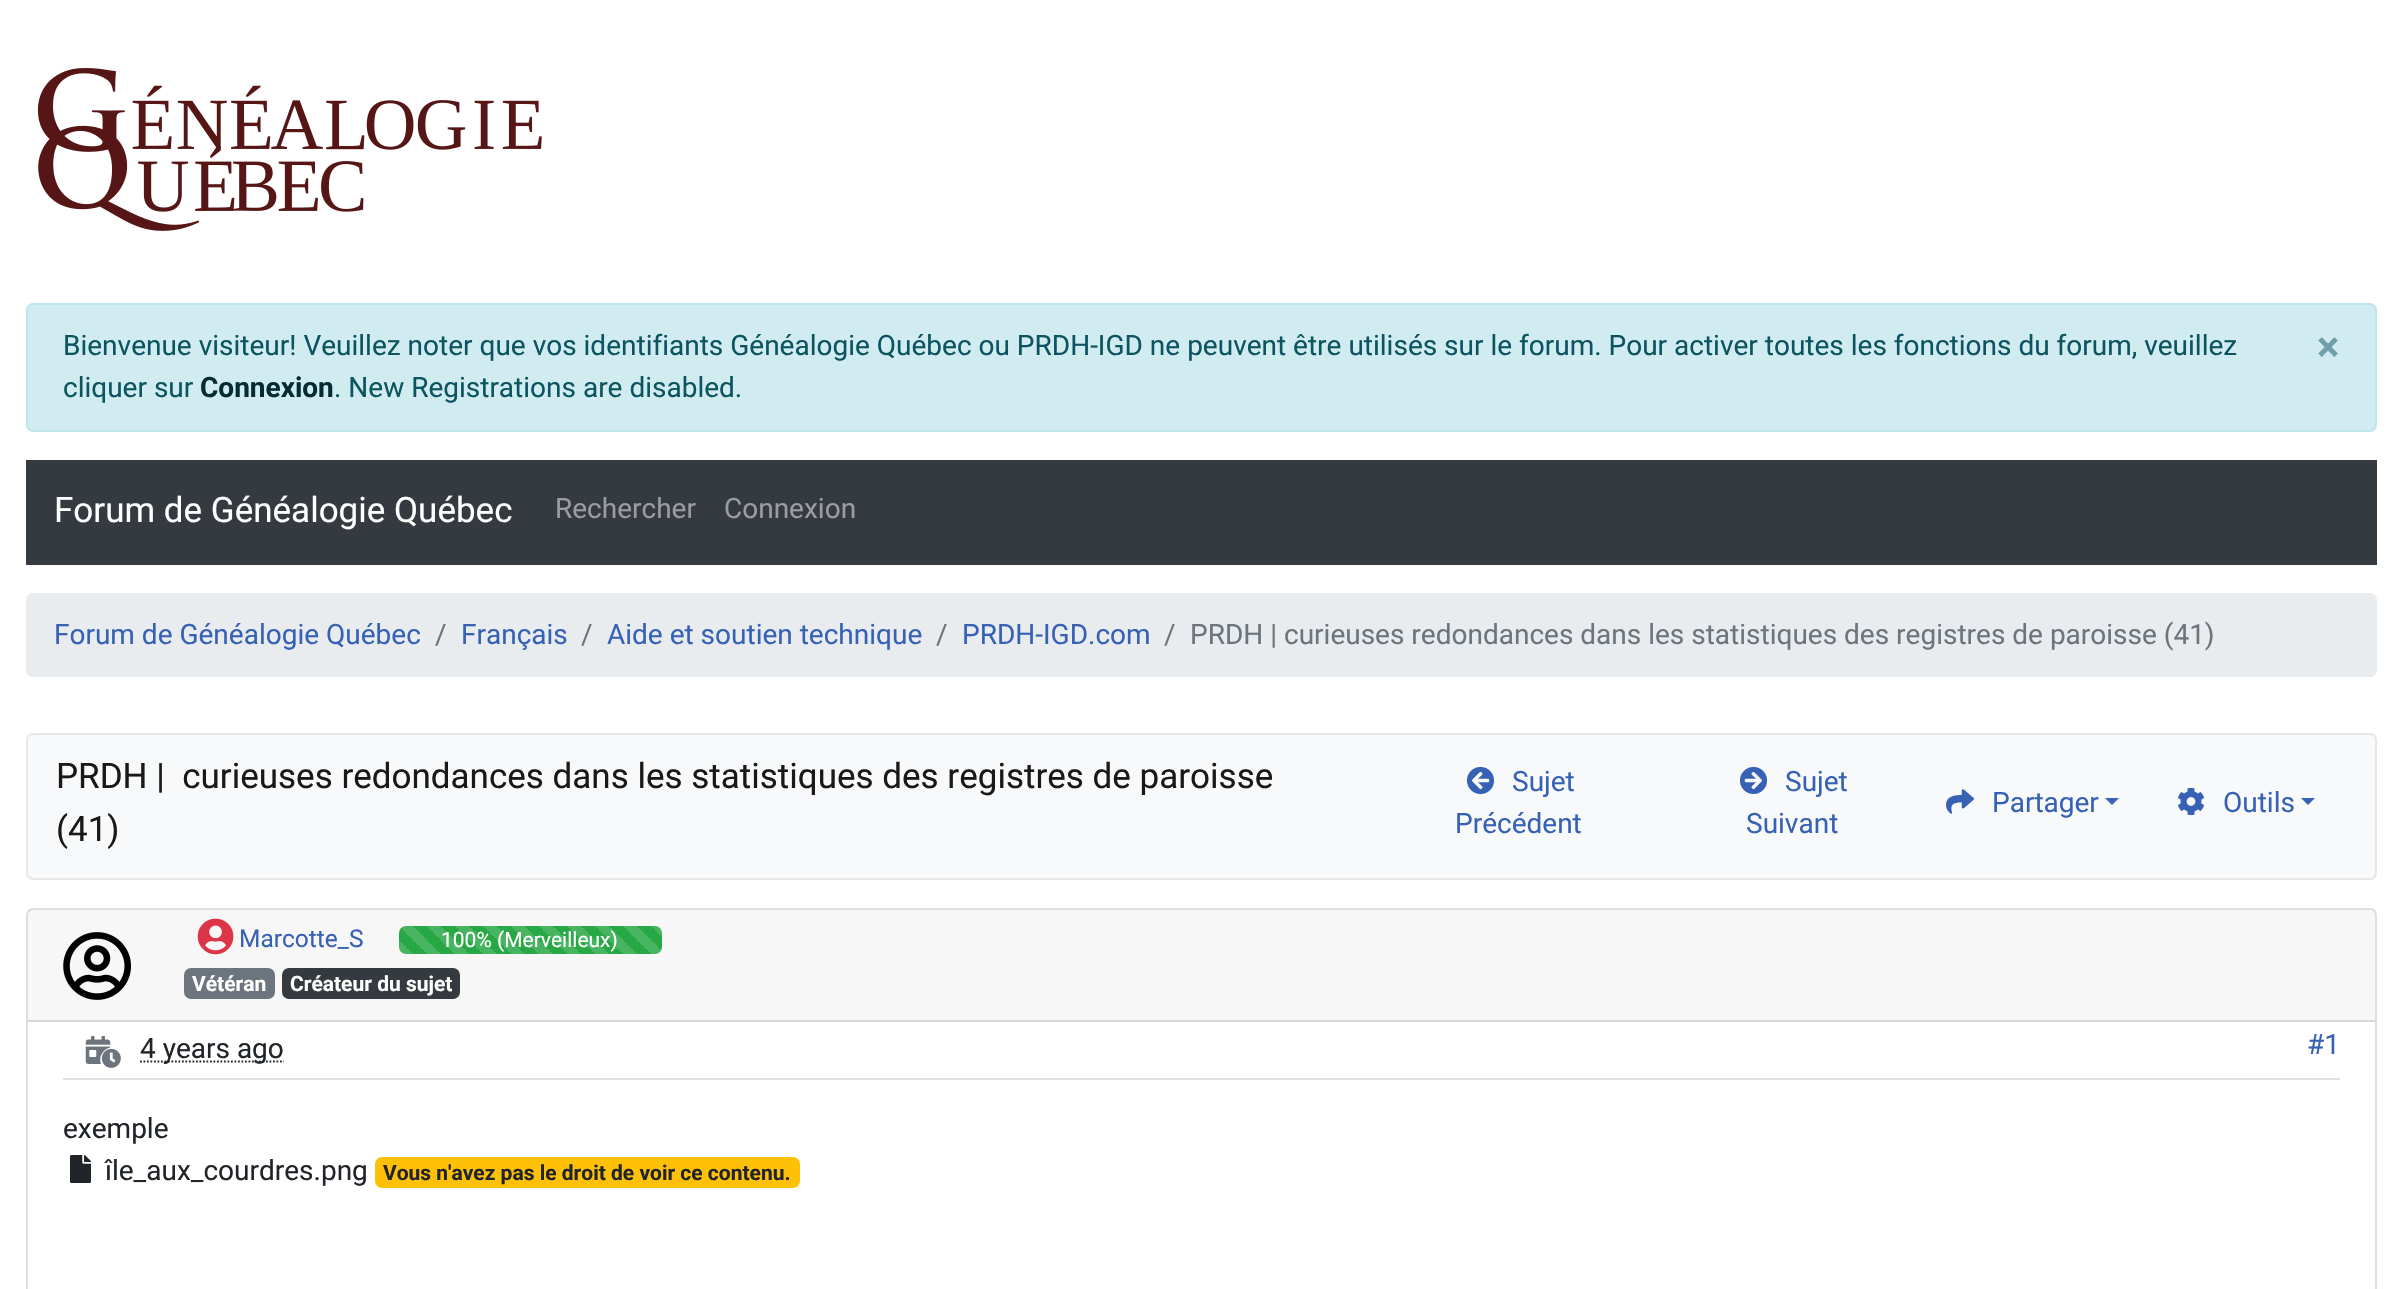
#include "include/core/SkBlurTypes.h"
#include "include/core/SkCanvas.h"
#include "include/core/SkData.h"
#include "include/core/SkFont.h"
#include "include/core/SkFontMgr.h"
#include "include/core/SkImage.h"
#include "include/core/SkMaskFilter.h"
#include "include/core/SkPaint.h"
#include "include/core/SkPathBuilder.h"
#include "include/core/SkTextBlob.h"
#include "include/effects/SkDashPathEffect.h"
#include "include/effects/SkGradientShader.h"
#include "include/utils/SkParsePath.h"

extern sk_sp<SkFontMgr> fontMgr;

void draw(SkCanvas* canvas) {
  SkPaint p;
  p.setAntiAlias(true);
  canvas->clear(SK_ColorWHITE);
  canvas->drawImageRect(SkImages::DeferredFromEncodedData(SkData::MakeFromFileName("images/1.png")), SkRect::MakeLTRB(37, 68, 542, 231), SkSamplingOptions());
  p.setColor(SkColorSetRGB(209, 236, 241));
  canvas->drawRoundRect(SkRect::MakeLTRB(27, 304, 2376, 431), 6, 6, p);
  p.setStyle(SkPaint::kStroke_Style);
  p.setStrokeWidth(2);
  p.setColor(SkColorSetRGB(190, 229, 235));
  canvas->drawRoundRect(SkRect::MakeLTRB(27, 304, 2376, 431), 6, 6, p);
  p.setStyle(SkPaint::kFill_Style);
  p.setColor(SkColorSetRGB(52, 58, 64));
  canvas->drawRect(SkRect::MakeLTRB(26, 460, 2377, 565), p);
  p.setColor(SkColorSetRGB(233, 236, 239));
  canvas->drawRoundRect(SkRect::MakeLTRB(26, 593, 2377, 677), 7, 7, p);
  p.setColor(SkColorSetRGB(248, 249, 250));
  canvas->drawRoundRect(SkRect::MakeLTRB(27, 734, 2376, 879), 6, 6, p);
  p.setStyle(SkPaint::kStroke_Style);
  p.setColor(SkColorSetRGB(231, 231, 231));
  canvas->drawRoundRect(SkRect::MakeLTRB(27, 734, 2376, 879), 6, 6, p);
  canvas->drawImageRect(SkImages::DeferredFromEncodedData(SkData::MakeFromFileName("images/2.png")), SkRect::MakeLTRB(1466, 766, 1495, 795), SkSamplingOptions());
  canvas->drawImageRect(SkImages::DeferredFromEncodedData(SkData::MakeFromFileName("images/3.png")), SkRect::MakeLTRB(1739, 766, 1768, 795), SkSamplingOptions());
  canvas->drawImageRect(SkImages::DeferredFromEncodedData(SkData::MakeFromFileName("images/4.png")), SkRect::MakeLTRB(1946, 789, 1974, 814), SkSamplingOptions());
  p.setStyle(SkPaint::kFill_Style);
  p.setColor(SkColorSetRGB(55, 97, 181));
  canvas->drawPath(SkPathBuilder().moveTo(2105, 798).lineTo(2119, 798).lineTo(2112, 805).close().detach(), p);
  canvas->drawImageRect(SkImages::DeferredFromEncodedData(SkData::MakeFromFileName("images/5.png")), SkRect::MakeLTRB(2178, 787, 2204, 816), SkSamplingOptions());
  canvas->drawPath(SkPathBuilder().moveTo(2301, 798).lineTo(2315, 798).lineTo(2308, 805).close().detach(), p);
  p.setStyle(SkPaint::kStroke_Style);
  p.setColor(SkColorSetRGB(223, 223, 223));
  canvas->drawRoundRect(SkRect::MakeLTRB(27, 909, 2376, 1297), 6, 6, p);
  p.setStyle(SkPaint::kFill_Style);
  p.setColor(SkColorSetARGB(8, 0, 0, 0));
  canvas->drawRect(SkRect::MakeLTRB(28, 910, 2375, 1020), p);
  p.setColor(SkColorSetRGB(216, 216, 216));
  canvas->drawRect(SkRect::MakeLTRB(28, 1020, 2375, 1022), p);
  canvas->drawImageRect(SkImages::DeferredFromEncodedData(SkData::MakeFromFileName("images/6.png")), SkRect::MakeLTRB(63, 932, 131, 1000), SkSamplingOptions());
  canvas->drawImageRect(SkImages::DeferredFromEncodedData(SkData::MakeFromFileName("images/7.png")), SkRect::MakeLTRB(197, 918, 234, 955), SkSamplingOptions());
  p.setColor(SkColorSetRGB(40, 167, 69));
  canvas->drawRoundRect(SkRect::MakeLTRB(399, 926, 662, 954), 7, 7, p);
  {
    const SkColor colors[] = {SkColorSetARGB(38, 255, 255, 255), SkColorSetARGB(0, 255, 255, 255), SkColorSetARGB(0, 255, 255, 255), SkColorSetARGB(38, 255, 255, 255), SkColorSetARGB(38, 255, 255, 255), SkColorSetARGB(0, 255, 255, 255), SkColorSetARGB(0, 0, 0, 0)};
    const float stops[] = {0.25f, 0.25f, 0.5f, 0.5f, 0.75f, 0.75f, 1};
    const SkPoint ends[] = {{399, 954}, {427, 926}};
    p.setShader(SkGradientShader::MakeLinear(ends, colors, stops, 7, SkTileMode::kClamp));
    p.setAlpha(255);
  }
  canvas->drawPath(SkPathBuilder().moveTo(406, 926).lineTo(427, 926).lineTo(427, 954).lineTo(406, 954).cubicTo(402, 954, 399, 951, 399, 947).lineTo(399, 933).cubicTo(399, 929, 402, 926, 406, 926).close().detach(), p);
  {
    const SkColor colors[] = {SkColorSetRGB(72, 180, 97), SkColorSetRGB(40, 167, 69), SkColorSetRGB(40, 167, 69), SkColorSetRGB(72, 180, 97), SkColorSetRGB(72, 180, 97), SkColorSetRGB(40, 167, 69), SkColorSetRGB(40, 167, 69)};
    const float stops[] = {0.25f, 0.25f, 0.5f, 0.5f, 0.75f, 0.75f, 1};
    const SkPoint ends[] = {{427, 954}, {455, 926}};
    p.setShader(SkGradientShader::MakeLinear(ends, colors, stops, 7, SkTileMode::kClamp));
    p.setAlpha(255);
  }
  canvas->drawRect(SkRect::MakeLTRB(427, 926, 455, 954), p);
  {
    const SkColor colors[] = {SkColorSetRGB(72, 180, 97), SkColorSetRGB(40, 167, 69), SkColorSetRGB(40, 167, 69), SkColorSetRGB(72, 180, 97), SkColorSetRGB(72, 180, 97), SkColorSetRGB(40, 167, 69), SkColorSetRGB(40, 167, 69)};
    const float stops[] = {0.25f, 0.25f, 0.5f, 0.5f, 0.75f, 0.75f, 1};
    const SkPoint ends[] = {{455, 954}, {483, 926}};
    p.setShader(SkGradientShader::MakeLinear(ends, colors, stops, 7, SkTileMode::kClamp));
    p.setAlpha(255);
  }
  canvas->drawRect(SkRect::MakeLTRB(455, 926, 483, 954), p);
  {
    const SkColor colors[] = {SkColorSetRGB(72, 180, 97), SkColorSetRGB(40, 167, 69), SkColorSetRGB(40, 167, 69), SkColorSetRGB(72, 180, 97), SkColorSetRGB(72, 180, 97), SkColorSetRGB(40, 167, 69), SkColorSetRGB(40, 167, 69)};
    const float stops[] = {0.25f, 0.25f, 0.5f, 0.5f, 0.75f, 0.75f, 1};
    const SkPoint ends[] = {{483, 954}, {511, 926}};
    p.setShader(SkGradientShader::MakeLinear(ends, colors, stops, 7, SkTileMode::kClamp));
    p.setAlpha(255);
  }
  canvas->drawRect(SkRect::MakeLTRB(483, 926, 511, 954), p);
  {
    const SkColor colors[] = {SkColorSetRGB(72, 180, 97), SkColorSetRGB(40, 167, 69), SkColorSetRGB(40, 167, 69), SkColorSetRGB(72, 180, 97), SkColorSetRGB(72, 180, 97), SkColorSetRGB(40, 167, 69), SkColorSetRGB(40, 167, 69)};
    const float stops[] = {0.25f, 0.25f, 0.5f, 0.5f, 0.75f, 0.75f, 1};
    const SkPoint ends[] = {{511, 954}, {539, 926}};
    p.setShader(SkGradientShader::MakeLinear(ends, colors, stops, 7, SkTileMode::kClamp));
    p.setAlpha(255);
  }
  canvas->drawRect(SkRect::MakeLTRB(511, 926, 539, 954), p);
  {
    const SkColor colors[] = {SkColorSetRGB(72, 180, 97), SkColorSetRGB(40, 167, 69), SkColorSetRGB(40, 167, 69), SkColorSetRGB(72, 180, 97), SkColorSetRGB(72, 180, 97), SkColorSetRGB(40, 167, 69), SkColorSetRGB(40, 167, 69)};
    const float stops[] = {0.25f, 0.25f, 0.5f, 0.5f, 0.75f, 0.75f, 1};
    const SkPoint ends[] = {{539, 954}, {567, 926}};
    p.setShader(SkGradientShader::MakeLinear(ends, colors, stops, 7, SkTileMode::kClamp));
    p.setAlpha(255);
  }
  canvas->drawRect(SkRect::MakeLTRB(539, 926, 567, 954), p);
  {
    const SkColor colors[] = {SkColorSetRGB(72, 180, 97), SkColorSetRGB(40, 167, 69), SkColorSetRGB(40, 167, 69), SkColorSetRGB(72, 180, 97), SkColorSetRGB(72, 180, 97), SkColorSetRGB(40, 167, 69), SkColorSetRGB(40, 167, 69)};
    const float stops[] = {0.25f, 0.25f, 0.5f, 0.5f, 0.75f, 0.75f, 1};
    const SkPoint ends[] = {{567, 954}, {595, 926}};
    p.setShader(SkGradientShader::MakeLinear(ends, colors, stops, 7, SkTileMode::kClamp));
    p.setAlpha(255);
  }
  canvas->drawRect(SkRect::MakeLTRB(567, 926, 595, 954), p);
  {
    const SkColor colors[] = {SkColorSetRGB(72, 180, 97), SkColorSetRGB(40, 167, 69), SkColorSetRGB(40, 167, 69), SkColorSetRGB(72, 180, 97), SkColorSetRGB(72, 180, 97), SkColorSetRGB(40, 167, 69), SkColorSetRGB(40, 167, 69)};
    const float stops[] = {0.25f, 0.25f, 0.5f, 0.5f, 0.75f, 0.75f, 1};
    const SkPoint ends[] = {{595, 954}, {623, 926}};
    p.setShader(SkGradientShader::MakeLinear(ends, colors, stops, 7, SkTileMode::kClamp));
    p.setAlpha(255);
  }
  canvas->drawRect(SkRect::MakeLTRB(595, 926, 623, 954), p);
  {
    const SkColor colors[] = {SkColorSetRGB(72, 180, 97), SkColorSetRGB(40, 167, 69), SkColorSetRGB(40, 167, 69), SkColorSetRGB(72, 180, 97), SkColorSetRGB(72, 180, 97), SkColorSetRGB(40, 167, 69), SkColorSetRGB(40, 167, 69)};
    const float stops[] = {0.25f, 0.25f, 0.5f, 0.5f, 0.75f, 0.75f, 1};
    const SkPoint ends[] = {{623, 954}, {651, 926}};
    p.setShader(SkGradientShader::MakeLinear(ends, colors, stops, 7, SkTileMode::kClamp));
    p.setAlpha(255);
  }
  canvas->drawRect(SkRect::MakeLTRB(623, 926, 651, 954), p);
  {
    const SkColor colors[] = {SkColorSetARGB(38, 255, 255, 255), SkColorSetARGB(0, 255, 255, 255), SkColorSetARGB(0, 255, 255, 255), SkColorSetARGB(38, 255, 255, 255), SkColorSetARGB(38, 255, 255, 255), SkColorSetARGB(0, 255, 255, 255), SkColorSetARGB(0, 0, 0, 0)};
    const float stops[] = {0.25f, 0.25f, 0.5f, 0.5f, 0.75f, 0.75f, 1};
    const SkPoint ends[] = {{651, 954}, {679, 926}};
    p.setShader(SkGradientShader::MakeLinear(ends, colors, stops, 7, SkTileMode::kClamp));
    p.setAlpha(255);
  }
  canvas->drawPath(SkPathBuilder().moveTo(651, 926).lineTo(655, 926).cubicTo(659, 926, 662, 929, 662, 933).lineTo(662, 947).cubicTo(662, 951, 659, 954, 655, 954).lineTo(651, 954).close().detach(), p);
  p.setShader(nullptr);
  p.setColor(SkColorSetRGB(108, 117, 125));
  canvas->drawRoundRect(SkRect::MakeLTRB(184, 968, 275, 999), 7, 7, p);
  p.setColor(SkColorSetRGB(52, 58, 64));
  canvas->drawRoundRect(SkRect::MakeLTRB(282, 968, 460, 999), 7, 7, p);
  p.setColor(SkColorSetRGB(222, 226, 230));
  canvas->drawRect(SkRect::MakeLTRB(63, 1078, 2340, 1080), p);
  canvas->drawImageRect(SkImages::DeferredFromEncodedData(SkData::MakeFromFileName("images/8.png")), SkRect::MakeLTRB(85, 1036, 111, 1064), SkSamplingOptions());
  p.setColor(SK_ColorWHITE);
  canvas->drawPath(SkPathBuilder().moveTo(104, 1051).cubicTo(115, 1039.5f, 132.5f, 1057, 121, 1068.5f).cubicTo(109.5f, 1080, 92.5f, 1062.5f, 104, 1051).close().detach(), p);
  canvas->drawImageRect(SkImages::DeferredFromEncodedData(SkData::MakeFromFileName("images/9.png")), SkRect::MakeLTRB(101, 1048, 121, 1068), SkSamplingOptions());
  p.setStyle(SkPaint::kStroke_Style);
  p.setStrokeWidth(1.8f);
  p.setColor(SkColorSetRGB(33, 37, 41));
  p.setPathEffect(SkDashPathEffect::Make({{1.75f, 1.75f}}, 0));
  canvas->drawPath(SkPathBuilder().moveTo(140, 1061.5f).lineTo(284, 1061.5f).detach(), p);
  p.setPathEffect(nullptr);
  canvas->drawImageRect(SkImages::DeferredFromEncodedData(SkData::MakeFromFileName("images/10.png")), SkRect::MakeLTRB(70, 1155, 91, 1183), SkSamplingOptions());
  p.setStyle(SkPaint::kFill_Style);
  p.setColor(SkColorSetRGB(255, 193, 7));
  canvas->drawRoundRect(SkRect::MakeLTRB(375, 1157, 800, 1188), 7, 7, p);
  SkFont font1(fontMgr->matchFamilyStyle("Roboto", SkFontStyle::Normal()), 28);
  font1.setSubpixel(true);
  p.setColor(SkColorSetRGB(12, 84, 96));
  canvas->drawString("Bienvenue visiteur! Veuillez noter que vos identifiants Généalogie Québec ou PRDH-IGD ne peuvent être utilisés sur le forum. Pour activer toutes les fonctions du forum, veuillez", 63, 355, font1, p);
  SkFont font2(fontMgr->matchFamilyStyle("Roboto", SkFontStyle::Bold()), 42);
  font2.setSubpixel(true);
  p.setColor(SkColorSetRGB(111, 160, 169));
  canvas->drawString("×", 2317, 361, font2, p);
  p.setColor(SkColorSetRGB(12, 84, 96));
  canvas->drawString("cliquer sur", 63, 397, font1, p);
  SkFont font3(fontMgr->matchFamilyStyle("Roboto", SkFontStyle::Bold()), 28);
  font3.setSubpixel(true);
  p.setColor(SkColorSetRGB(6, 44, 51));
  canvas->drawString("Connexion", 200, 397, font3, p);
  p.setColor(SkColorSetRGB(12, 84, 96));
  canvas->drawString(". New Registrations are disabled.", 334, 397, font1, p);
  SkFont font4(fontMgr->matchFamilyStyle("Roboto", SkFontStyle::Normal()), 35);
  font4.setSubpixel(true);
  p.setColor(SK_ColorWHITE);
  canvas->drawString("Forum de Généalogie Québec", 54, 522, font4, p);
  p.setColor(SkColorSetRGB(154, 157, 160));
  canvas->drawString("Rechercher", 555, 518, font1, p);
  canvas->drawString("Connexion", 724, 518, font1, p);
  p.setColor(SkColorSetRGB(55, 97, 181));
  canvas->drawString("Forum de Généalogie Québec", 54, 644, font1, p);
  p.setColor(SkColorSetRGB(108, 117, 125));
  canvas->drawString("/", 435, 644, font1, p);
  p.setColor(SkColorSetRGB(55, 97, 181));
  canvas->drawString("Français", 461, 644, font1, p);
  p.setColor(SkColorSetRGB(108, 117, 125));
  canvas->drawString("/", 581, 644, font1, p);
  p.setColor(SkColorSetRGB(55, 97, 181));
  canvas->drawString("Aide et soutien technique", 607, 644, font1, p);
  p.setColor(SkColorSetRGB(108, 117, 125));
  canvas->drawString("/", 936, 644, font1, p);
  p.setColor(SkColorSetRGB(55, 97, 181));
  canvas->drawString("PRDH-IGD.com", 962, 644, font1, p);
  p.setColor(SkColorSetRGB(108, 117, 125));
  canvas->drawString("/", 1164, 644, font1, p);
  canvas->drawString("PRDH | curieuses redondances dans les statistiques des registres de paroisse (41)", 1190, 644, font1, p);
  p.setColor(SkColorSetRGB(25, 25, 25));
  canvas->drawString("PRDH |  curieuses redondances dans les statistiques des registres de paroisse", 56, 788, font4, p);
  canvas->drawString("(41)", 56, 841, font4, p);
  p.setColor(SkColorSetRGB(55, 97, 181));
  canvas->drawString("Sujet", 1512, 791, font1, p);
  canvas->drawString("Précédent", 1455, 833, font1, p);
  canvas->drawString("Sujet", 1785, 791, font1, p);
  canvas->drawString("Suivant", 1746, 833, font1, p);
  canvas->drawString("Partager", 1992, 812, font1, p);
  canvas->drawString("Outils", 2223, 812, font1, p);
  SkFont font5(fontMgr->matchFamilyStyle("Roboto", SkFontStyle::Normal()), 24.5f);
  font5.setSubpixel(true);
  canvas->drawString("Marcotte_S", 239, 947, font5, p);
  SkFont font6(fontMgr->matchFamilyStyle("Roboto", SkFontStyle::Normal()), 21);
  font6.setSubpixel(true);
  p.setColor(SK_ColorWHITE);
  canvas->drawString("100% (Merveilleux)", 441, 947, font6, p);
  SkFont font7(fontMgr->matchFamilyStyle("Roboto", SkFontStyle::Bold()), 21);
  font7.setSubpixel(true);
  canvas->drawString("Vétéran", 192, 991, font7, p);
  canvas->drawString("Créateur du sujet", 290, 991, font7, p);
  p.setColor(SkColorSetRGB(33, 37, 41));
  canvas->drawString("4 years ago", 140, 1058, font1, p);
  p.setColor(SkColorSetRGB(55, 97, 181));
  canvas->drawString("#1", 2307, 1054, font1, p);
  p.setColor(SkColorSetRGB(33, 37, 41));
  canvas->drawString("exemple", 63, 1138, font1, p);
  canvas->drawString("île_aux_courdres.png", 105, 1180, font1, p);
  canvas->drawString("Vous n'avez pas le droit de voir ce contenu.", 383, 1180, font7, p);
}
